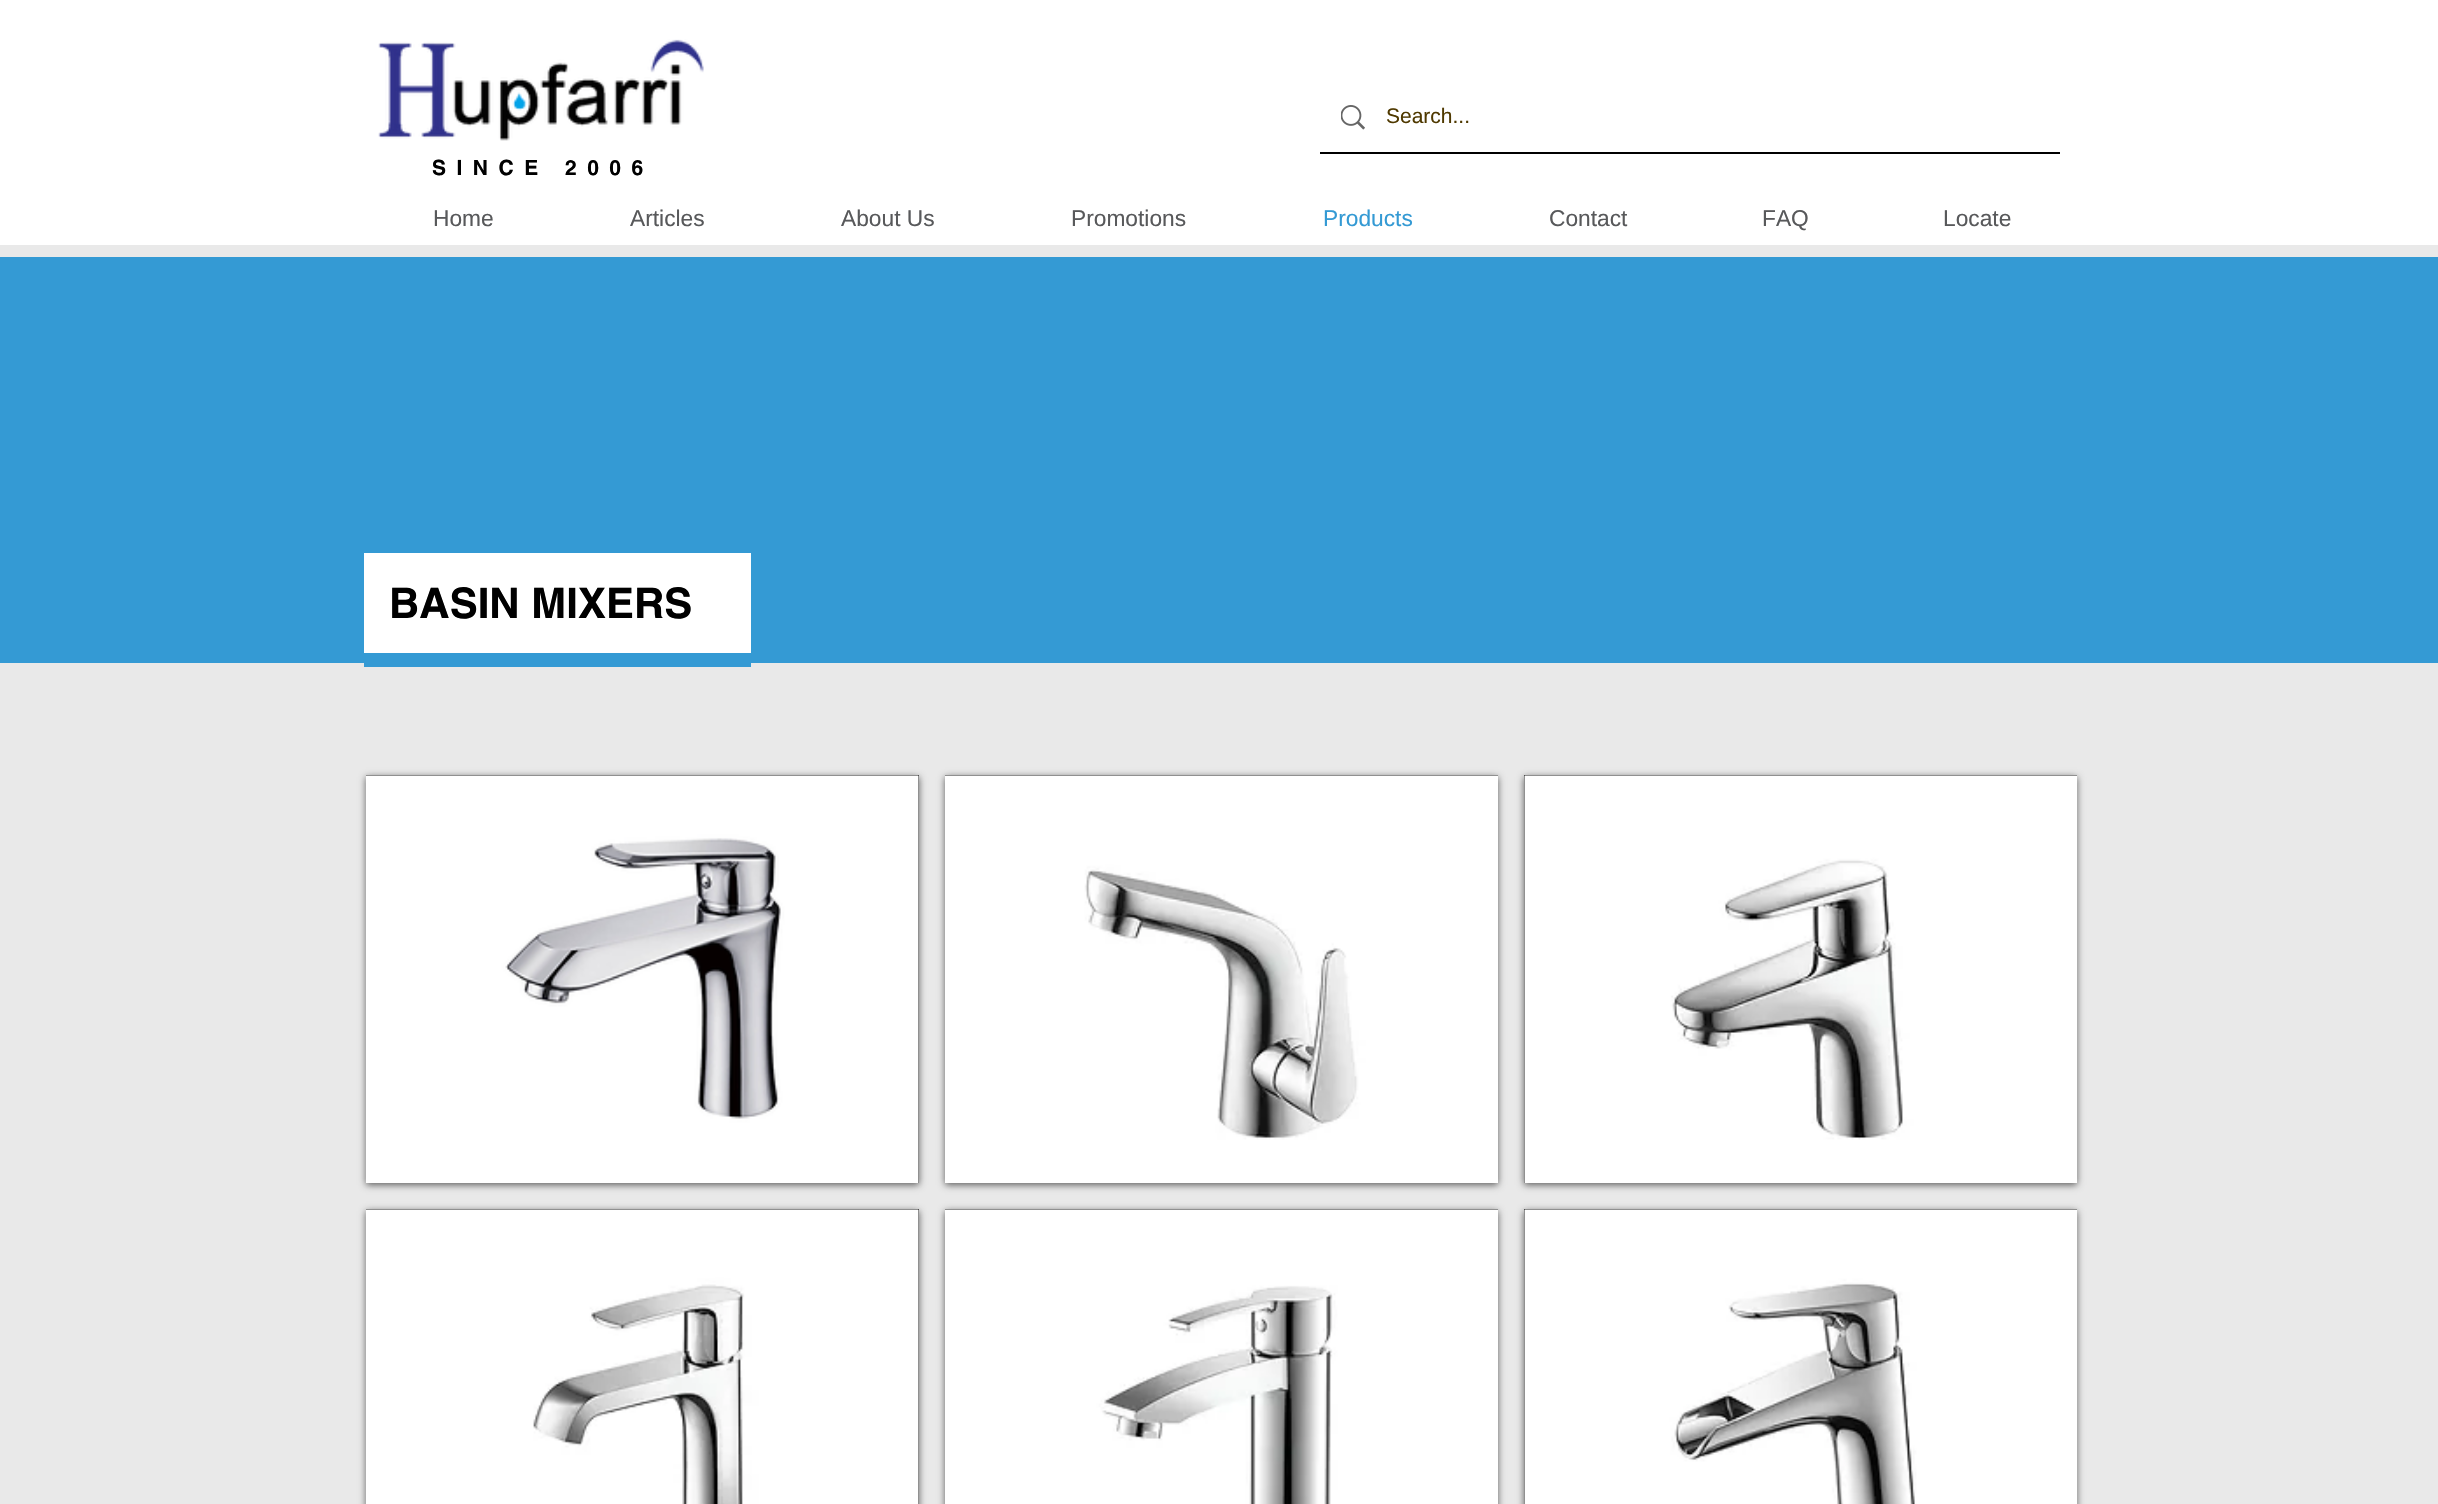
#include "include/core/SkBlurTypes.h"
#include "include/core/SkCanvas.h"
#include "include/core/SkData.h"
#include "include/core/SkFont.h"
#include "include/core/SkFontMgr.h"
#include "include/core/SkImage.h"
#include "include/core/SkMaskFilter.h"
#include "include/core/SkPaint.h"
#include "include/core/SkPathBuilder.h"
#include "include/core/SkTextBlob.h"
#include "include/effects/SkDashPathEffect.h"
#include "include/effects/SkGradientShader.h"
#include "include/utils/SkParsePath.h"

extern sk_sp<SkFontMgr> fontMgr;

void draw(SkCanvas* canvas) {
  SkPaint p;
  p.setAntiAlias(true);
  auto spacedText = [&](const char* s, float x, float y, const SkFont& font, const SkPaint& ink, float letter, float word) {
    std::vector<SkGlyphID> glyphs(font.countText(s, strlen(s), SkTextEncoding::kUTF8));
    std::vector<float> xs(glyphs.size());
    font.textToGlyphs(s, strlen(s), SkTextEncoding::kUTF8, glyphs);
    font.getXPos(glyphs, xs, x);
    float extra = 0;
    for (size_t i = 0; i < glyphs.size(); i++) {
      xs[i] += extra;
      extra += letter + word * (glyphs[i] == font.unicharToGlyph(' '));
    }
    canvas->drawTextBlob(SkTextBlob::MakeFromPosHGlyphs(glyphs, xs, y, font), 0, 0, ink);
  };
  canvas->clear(SkColorSetRGB(233, 233, 233));
  p.setColor(SK_ColorWHITE);
  canvas->drawRect(SkRect::MakeLTRB(0, 0, 2438, 245), p);
  canvas->drawImageRect(SkImages::DeferredFromEncodedData(SkData::MakeFromFileName("images/1.png")), SkRect::MakeLTRB(378, 39, 704, 141), SkSamplingOptions());
  p.setColor(SK_ColorBLACK);
  canvas->drawRect(SkRect::MakeLTRB(1320, 152, 2060, 154), p);
  canvas->drawImageRect(SkImages::DeferredFromEncodedData(SkData::MakeFromFileName("images/2.png")), SkRect::MakeLTRB(1341, 105, 1365, 130), SkSamplingOptions());
  p.setColor(SkColorSetRGB(52, 154, 212));
  canvas->drawRect(SkRect::MakeLTRB(0, 257, 2438, 663), p);
  p.setColor(SK_ColorWHITE);
  canvas->drawRect(SkRect::MakeLTRB(364, 553, 751, 653), p);
  p.setColor(SkColorSetRGB(52, 154, 212));
  canvas->drawRect(SkRect::MakeLTRB(364, 663, 751, 667), p);
  p.setColor(SkColorSetARGB(153, 0, 0, 0));
  p.setMaskFilter(SkMaskFilter::MakeBlur(kNormal_SkBlurStyle, 3.5f));
  canvas->drawRect(SkRect::MakeLTRB(366, 777, 919, 1185), p);
  p.setMaskFilter(nullptr);
  p.setColor(SK_ColorBLACK);
  canvas->drawRect(SkRect::MakeLTRB(366, 775, 919, 1183), p);
  canvas->drawImageRect(SkImages::DeferredFromEncodedData(SkData::MakeFromFileName("images/3.png")), SkRect::MakeLTRB(365, 775, 919, 1183), SkSamplingOptions());
  p.setColor(SkColorSetARGB(153, 0, 0, 0));
  p.setMaskFilter(SkMaskFilter::MakeBlur(kNormal_SkBlurStyle, 3.5f));
  canvas->drawRect(SkRect::MakeLTRB(945, 777, 1498, 1185), p);
  p.setMaskFilter(nullptr);
  p.setColor(SK_ColorBLACK);
  canvas->drawRect(SkRect::MakeLTRB(945, 775, 1498, 776), p);
  canvas->drawImageRect(SkImages::DeferredFromEncodedData(SkData::MakeFromFileName("images/4.png")), SkRect::MakeLTRB(945, 775, 1498, 1183), SkSamplingOptions());
  p.setColor(SkColorSetARGB(153, 0, 0, 0));
  p.setMaskFilter(SkMaskFilter::MakeBlur(kNormal_SkBlurStyle, 3.5f));
  canvas->drawRect(SkRect::MakeLTRB(1524, 777, 2077, 1185), p);
  p.setMaskFilter(nullptr);
  p.setColor(SK_ColorBLACK);
  canvas->drawRect(SkRect::MakeLTRB(1524, 775, 2077, 1183), p);
  canvas->drawImageRect(SkImages::DeferredFromEncodedData(SkData::MakeFromFileName("images/5.png")), SkRect::MakeLTRB(1524, 775, 2078, 1183), SkSamplingOptions());
  p.setColor(SkColorSetARGB(153, 0, 0, 0));
  p.setMaskFilter(SkMaskFilter::MakeBlur(kNormal_SkBlurStyle, 3.5f));
  canvas->drawRect(SkRect::MakeLTRB(366, 1211, 919, 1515), p);
  p.setMaskFilter(nullptr);
  p.setColor(SK_ColorBLACK);
  canvas->drawRect(SkRect::MakeLTRB(366, 1209, 919, 1504), p);
  canvas->drawImageRect(SkImages::DeferredFromEncodedData(SkData::MakeFromFileName("images/6.png")), SkRect::MakeLTRB(365, 1209, 919, 1504), SkSamplingOptions());
  p.setColor(SkColorSetARGB(153, 0, 0, 0));
  p.setMaskFilter(SkMaskFilter::MakeBlur(kNormal_SkBlurStyle, 3.5f));
  canvas->drawRect(SkRect::MakeLTRB(945, 1211, 1498, 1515), p);
  p.setMaskFilter(nullptr);
  p.setColor(SK_ColorBLACK);
  canvas->drawRect(SkRect::MakeLTRB(945, 1209, 1498, 1210), p);
  canvas->drawImageRect(SkImages::DeferredFromEncodedData(SkData::MakeFromFileName("images/7.png")), SkRect::MakeLTRB(945, 1209, 1498, 1504), SkSamplingOptions());
  p.setColor(SkColorSetARGB(153, 0, 0, 0));
  p.setMaskFilter(SkMaskFilter::MakeBlur(kNormal_SkBlurStyle, 3.5f));
  canvas->drawRect(SkRect::MakeLTRB(1524, 1211, 2077, 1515), p);
  p.setMaskFilter(nullptr);
  p.setColor(SK_ColorBLACK);
  canvas->drawRect(SkRect::MakeLTRB(1524, 1209, 2077, 1504), p);
  canvas->drawImageRect(SkImages::DeferredFromEncodedData(SkData::MakeFromFileName("images/8.png")), SkRect::MakeLTRB(1524, 1209, 2078, 1504), SkSamplingOptions());
  SkFont font1(fontMgr->matchFamilyStyle("Liberation Sans", SkFontStyle::Normal()), 21);
  font1.setSubpixel(true);
  p.setColor(SkColorSetRGB(79, 57, 0));
  canvas->drawString("Search...", 1386, 123, font1, p);
  SkFont font2(fontMgr->matchFamilyStyle("helvetica", SkFontStyle::Bold()), 21);
  font2.setSubpixel(true);
  p.setColor(SK_ColorBLACK);
  spacedText("SINCE 2006", 432, 175, font2, p, 10.5f, 0);
  SkFont font3(fontMgr->matchFamilyStyle("Liberation Sans", SkFontStyle::Normal()), 22.75f);
  font3.setSubpixel(true);
  p.setColor(SkColorSetRGB(88, 89, 91));
  canvas->drawString("Home", 433, 226, font3, p);
  canvas->drawString("Articles", 630, 226, font3, p);
  canvas->drawString("About Us", 841, 226, font3, p);
  canvas->drawString("Promotions", 1071, 226, font3, p);
  p.setColor(SkColorSetRGB(52, 154, 212));
  canvas->drawString("Products", 1323, 226, font3, p);
  p.setColor(SkColorSetRGB(88, 89, 91));
  canvas->drawString("Contact", 1549, 226, font3, p);
  canvas->drawString("FAQ", 1762, 226, font3, p);
  canvas->drawString("Locate", 1943, 226, font3, p);
  SkFont font4(fontMgr->matchFamilyStyle("helvetica", SkFontStyle::Bold()), 42);
  font4.setSubpixel(true);
  p.setColor(SK_ColorBLACK);
  canvas->drawString("BASIN MIXERS", 389, 618, font4, p);
}
